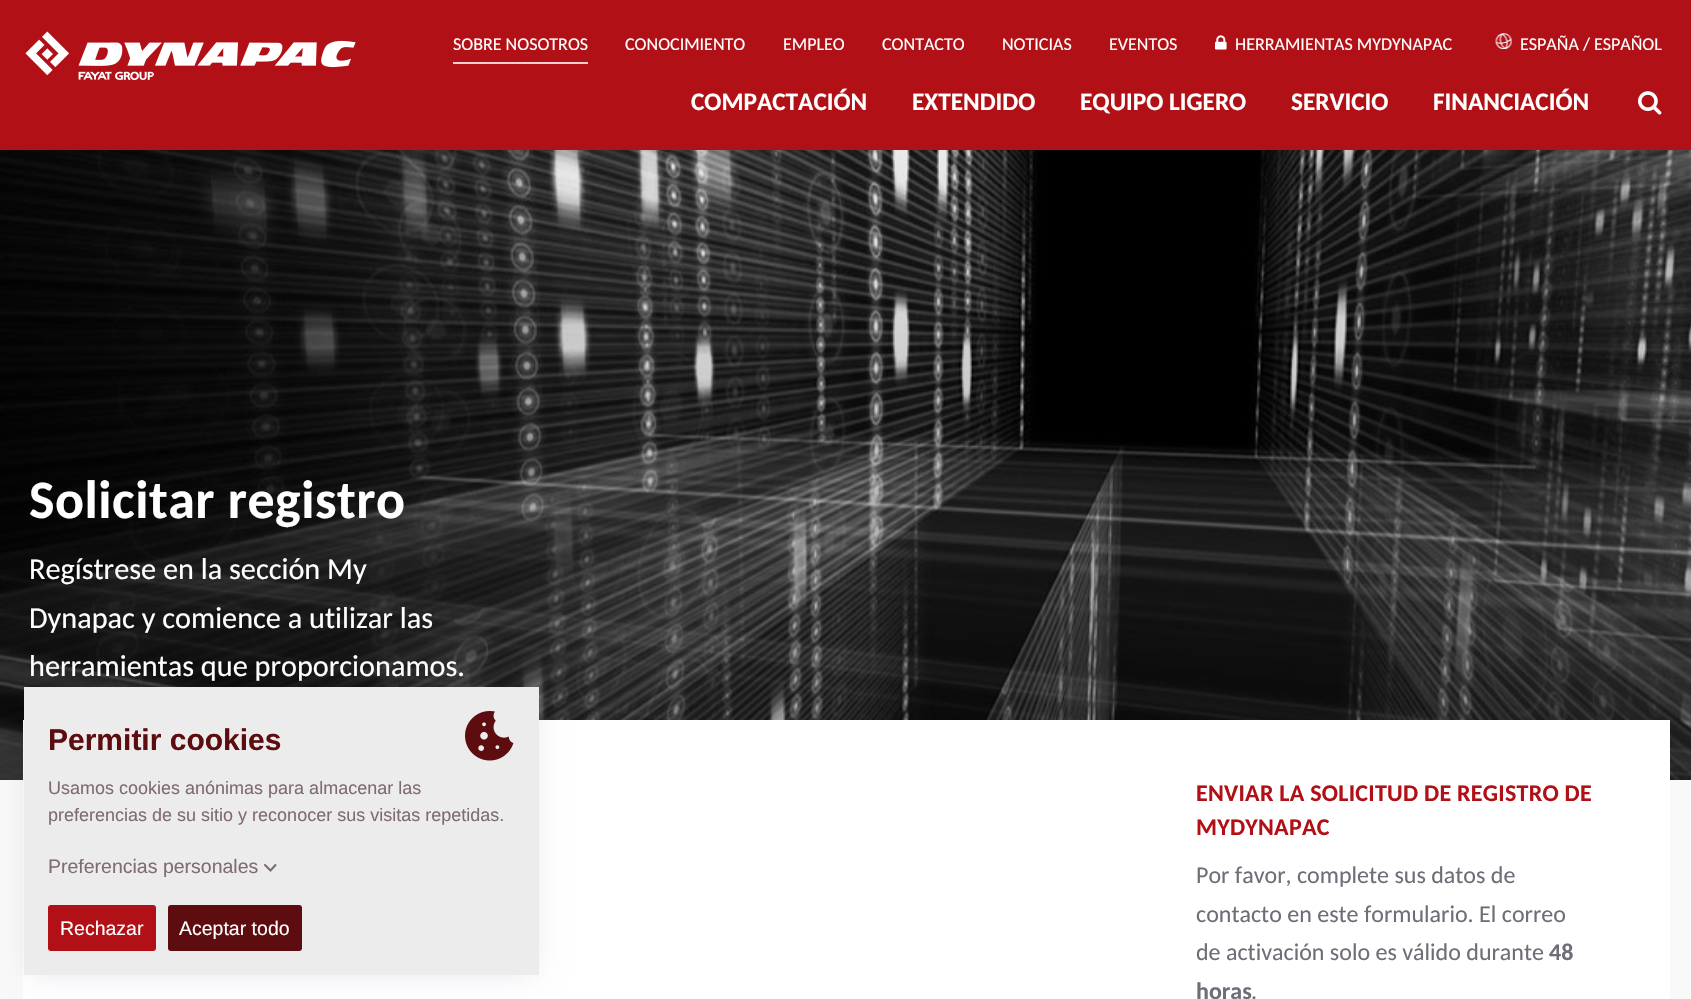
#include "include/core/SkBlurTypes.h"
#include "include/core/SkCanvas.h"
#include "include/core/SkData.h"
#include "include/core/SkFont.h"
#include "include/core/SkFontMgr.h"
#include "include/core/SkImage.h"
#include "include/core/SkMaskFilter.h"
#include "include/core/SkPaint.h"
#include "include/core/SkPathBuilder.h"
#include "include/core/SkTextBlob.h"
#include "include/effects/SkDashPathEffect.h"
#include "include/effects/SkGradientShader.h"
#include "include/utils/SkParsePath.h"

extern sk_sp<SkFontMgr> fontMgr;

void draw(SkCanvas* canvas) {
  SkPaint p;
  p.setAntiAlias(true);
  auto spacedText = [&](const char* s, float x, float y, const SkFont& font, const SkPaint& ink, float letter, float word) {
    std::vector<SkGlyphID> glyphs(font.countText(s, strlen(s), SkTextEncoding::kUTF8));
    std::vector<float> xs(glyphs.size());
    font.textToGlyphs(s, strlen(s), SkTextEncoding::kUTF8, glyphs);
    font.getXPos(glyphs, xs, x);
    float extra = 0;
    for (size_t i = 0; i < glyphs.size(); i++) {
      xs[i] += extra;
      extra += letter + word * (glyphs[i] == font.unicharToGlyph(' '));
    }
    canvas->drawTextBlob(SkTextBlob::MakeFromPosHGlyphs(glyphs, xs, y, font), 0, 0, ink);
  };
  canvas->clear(SkColorSetRGB(249, 249, 249));
  p.setColor(SkColorSetRGB(177, 17, 22));
  canvas->drawRect(SkRect::MakeLTRB(0, 0, 1691, 150), p);
  canvas->drawImageRect(SkImages::DeferredFromEncodedData(SkData::MakeFromFileName("images/1.png")), SkRect::MakeLTRB(25, 31, 356, 80), SkSamplingOptions());
  p.setColor(SkColorSetRGB(239, 208, 210));
  canvas->drawRect(SkRect::MakeLTRB(453, 62, 588, 64), p);
  canvas->drawImageRect(SkImages::DeferredFromEncodedData(SkData::MakeFromFileName("images/2.png")), SkRect::MakeLTRB(1215, 35, 1227, 50), SkSamplingOptions());
  canvas->drawImageRect(SkImages::DeferredFromEncodedData(SkData::MakeFromFileName("images/3.png")), SkRect::MakeLTRB(1495, 33, 1512, 50), SkSamplingOptions());
  canvas->drawImageRect(SkImages::DeferredFromEncodedData(SkData::MakeFromFileName("images/4.png")), SkRect::MakeLTRB(1638, 91, 1662, 115), SkSamplingOptions());
  canvas->drawImageRect(SkImages::DeferredFromEncodedData(SkData::MakeFromFileName("images/5.png")), SkRect::MakeLTRB(0, 150, 1691, 780), SkSamplingOptions());
  p.setColor(SK_ColorWHITE);
  canvas->drawRect(SkRect::MakeLTRB(23, 720, 1670, 999), p);
  p.setColor(SkColorSetARGB(26, 1, 1, 63));
  p.setMaskFilter(SkMaskFilter::MakeBlur(kNormal_SkBlurStyle, 14));
  canvas->drawRect(SkRect::MakeLTRB(30, 696, 533, 972), p);
  p.setMaskFilter(nullptr);
  p.setColor(SkColorSetRGB(236, 236, 236));
  canvas->drawRect(SkRect::MakeLTRB(24, 687, 539, 975), p);
  canvas->drawImageRect(SkImages::DeferredFromEncodedData(SkData::MakeFromFileName("images/6.png")), SkRect::MakeLTRB(465, 711, 514, 761), SkSamplingOptions());
  p.setStyle(SkPaint::kStroke_Style);
  p.setStrokeWidth(2.1f);
  p.setStrokeCap(SkPaint::kRound_Cap);
  p.setColor(SkColorSetRGB(128, 107, 112));
  canvas->drawPath(SkPathBuilder().moveTo(265, 865).lineTo(270.5f, 870.5f).lineTo(275.5f, 865).detach(), p);
  p.setStyle(SkPaint::kFill_Style);
  p.setColor(SkColorSetRGB(177, 17, 22));
  canvas->drawRoundRect(SkRect::MakeLTRB(48, 905, 156, 951), 3, 3, p);
  p.setColor(SkColorSetRGB(93, 12, 15));
  canvas->drawRoundRect(SkRect::MakeLTRB(168, 905, 302, 951), 3, 3, p);
  SkFont font1(fontMgr->matchFamilyStyle("Carlito", SkFontStyle::Normal()), 18);
  font1.setSubpixel(true);
  p.setColor(SK_ColorWHITE);
  canvas->drawString("SOBRE NOSOTROS", 453, 50, font1, p);
  canvas->drawString("CONOCIMIENTO", 625, 50, font1, p);
  canvas->drawString("EMPLEO", 783, 50, font1, p);
  canvas->drawString("CONTACTO", 882, 50, font1, p);
  canvas->drawString("NOTICIAS", 1002, 50, font1, p);
  canvas->drawString("EVENTOS", 1109, 50, font1, p);
  canvas->drawString("HERRAMIENTAS MYDYNAPAC", 1235, 50, font1, p);
  canvas->drawString("ESPAÑA / ESPAÑOL", 1520, 50, font1, p);
  SkFont font2(fontMgr->matchFamilyStyle("Carlito", SkFontStyle::Bold()), 25.25f);
  font2.setSubpixel(true);
  canvas->drawString("COMPACTACIÓN", 691, 110, font2, p);
  canvas->drawString("EXTENDIDO", 912, 110, font2, p);
  canvas->drawString("EQUIPO LIGERO", 1080, 110, font2, p);
  canvas->drawString("SERVICIO", 1291, 110, font2, p);
  canvas->drawString("FINANCIACIÓN", 1433, 110, font2, p);
  SkFont font3(fontMgr->matchFamilyStyle("Carlito", SkFontStyle::Bold()), 54);
  font3.setSubpixel(true);
  spacedText("Solicitar registro", 29, 518, font3, p, 0.5f, 0);
  SkFont font4(fontMgr->matchFamilyStyle("Carlito", SkFontStyle::Normal()), 30.25f);
  font4.setSubpixel(true);
  canvas->drawString("Regístrese en la sección My", 29, 579, font4, p);
  canvas->drawString("Dynapac y comience a utilizar las", 29, 628, font4, p);
  canvas->drawString("herramientas que proporcionamos.", 29, 676, font4, p);
  SkFont font5(fontMgr->matchFamilyStyle("Liberation Sans", SkFontStyle::Bold()), 30);
  font5.setSubpixel(true);
  p.setColor(SkColorSetRGB(93, 12, 15));
  canvas->drawString("Permitir cookies", 48, 750, font5, p);
  SkFont font6(fontMgr->matchFamilyStyle("Liberation Sans", SkFontStyle::Normal()), 18);
  font6.setSubpixel(true);
  p.setColor(SkColorSetRGB(128, 107, 112));
  canvas->drawString("Usamos cookies anónimas para almacenar las", 48, 794, font6, p);
  canvas->drawString("preferencias de su sitio y reconocer sus visitas repetidas.", 48, 821, font6, p);
  SkFont font7(fontMgr->matchFamilyStyle("Liberation Sans", SkFontStyle::Normal()), 19.5f);
  font7.setSubpixel(true);
  canvas->drawString("Preferencias personales", 48, 873, font7, p);
  p.setColor(SK_ColorWHITE);
  canvas->drawString("Rechazar", 60, 935, font7, p);
  canvas->drawString("Aceptar todo", 179, 935, font7, p);
  SkFont font8(fontMgr->matchFamilyStyle("Carlito", SkFontStyle::Bold()), 24);
  font8.setSubpixel(true);
  p.setColor(SkColorSetRGB(177, 17, 22));
  spacedText("ENVIAR LA SOLICITUD DE REGISTRO DE", 1196, 801, font8, p, 0.25f, 0);
  spacedText("MYDYNAPAC", 1196, 835, font8, p, 0.25f, 0);
  SkFont font9(fontMgr->matchFamilyStyle("Carlito", SkFontStyle::Normal()), 24);
  font9.setSubpixel(true);
  p.setColor(SkColorSetRGB(110, 110, 120));
  canvas->drawString("Por favor, complete sus datos de", 1196, 883, font9, p);
  canvas->drawString("contacto en este formulario. El correo", 1196, 922, font9, p);
  canvas->drawString("de activación solo es válido durante", 1196, 960, font9, p);
  canvas->drawString("48", 1549, 960, font8, p);
  canvas->drawString("horas", 1196, 999, font8, p);
  canvas->drawString(".", 1251, 999, font9, p);
}
